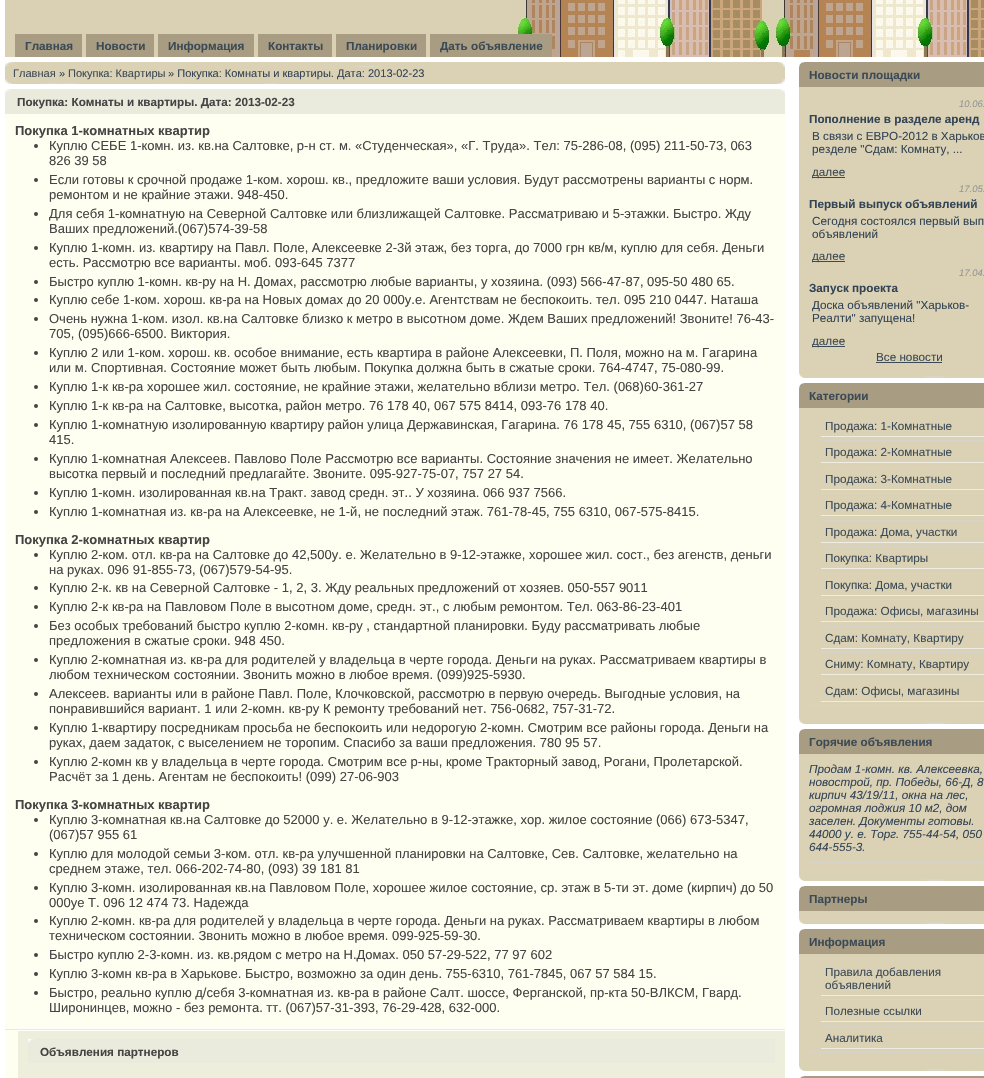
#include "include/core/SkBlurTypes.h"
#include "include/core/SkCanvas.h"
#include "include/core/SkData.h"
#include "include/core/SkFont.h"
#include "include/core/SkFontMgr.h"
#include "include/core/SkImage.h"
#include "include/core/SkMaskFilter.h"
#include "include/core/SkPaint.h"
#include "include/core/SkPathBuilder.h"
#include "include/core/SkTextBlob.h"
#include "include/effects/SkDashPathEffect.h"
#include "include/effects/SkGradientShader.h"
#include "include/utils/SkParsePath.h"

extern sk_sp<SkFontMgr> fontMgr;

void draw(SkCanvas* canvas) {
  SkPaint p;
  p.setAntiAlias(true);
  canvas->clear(SK_ColorWHITE);
  canvas->drawImageRect(SkImages::DeferredFromEncodedData(SkData::MakeFromFileName("images/1.png")), SkRect::MakeLTRB(5, 0, 984, 57), SkSamplingOptions());
  p.setColor(SkColorSetRGB(168, 156, 130));
  canvas->drawRect(SkRect::MakeLTRB(15, 34, 82, 57), p);
  canvas->drawRect(SkRect::MakeLTRB(86, 34, 154, 57), p);
  canvas->drawRect(SkRect::MakeLTRB(158, 34, 254, 57), p);
  canvas->drawRect(SkRect::MakeLTRB(258, 34, 332, 57), p);
  canvas->drawRect(SkRect::MakeLTRB(336, 34, 426, 57), p);
  canvas->drawRect(SkRect::MakeLTRB(430, 34, 552, 57), p);
  p.setColor(SkColorSetRGB(219, 210, 181));
  canvas->drawRect(SkRect::MakeLTRB(5, 67, 785, 79), p);
  canvas->drawImageRect(SkImages::DeferredFromEncodedData(SkData::MakeFromFileName("images/2.png")), SkRect::MakeLTRB(5, 62, 785, 67), SkSamplingOptions());
  canvas->drawImageRect(SkImages::DeferredFromEncodedData(SkData::MakeFromFileName("images/3.png")), SkRect::MakeLTRB(5, 79, 785, 84), SkSamplingOptions());
  p.setColor(SkColorSetRGB(235, 235, 221));
  canvas->drawRect(SkRect::MakeLTRB(5, 94, 785, 114), p);
  canvas->drawImageRect(SkImages::DeferredFromEncodedData(SkData::MakeFromFileName("images/4.png")), SkRect::MakeLTRB(5, 89, 785, 94), SkSamplingOptions());
  p.setColor(SkColorSetRGB(255, 255, 241));
  canvas->drawRect(SkRect::MakeLTRB(5, 114, 785, 1029), p);
  p.setColor(SkColorSetRGB(68, 68, 68));
  canvas->drawCircle(36, 146, 2, p);
  canvas->drawCircle(36, 180, 2, p);
  canvas->drawCircle(36, 214, 2, p);
  canvas->drawCircle(36, 248, 2, p);
  canvas->drawCircle(36, 282, 2, p);
  canvas->drawCircle(36, 300, 2, p);
  canvas->drawCircle(36, 319, 2, p);
  canvas->drawCircle(36, 353, 2, p);
  canvas->drawCircle(36, 387, 2, p);
  canvas->drawCircle(36, 406, 2, p);
  canvas->drawCircle(36, 425, 2, p);
  canvas->drawCircle(36, 459, 2, p);
  canvas->drawCircle(36, 493, 2, p);
  canvas->drawCircle(36, 512, 2, p);
  canvas->drawCircle(36, 555, 2, p);
  canvas->drawCircle(36, 588, 2, p);
  canvas->drawCircle(36, 607, 2, p);
  canvas->drawCircle(36, 626, 2, p);
  canvas->drawCircle(36, 660, 2, p);
  canvas->drawCircle(36, 694, 2, p);
  canvas->drawCircle(36, 728, 2, p);
  canvas->drawCircle(36, 762, 2, p);
  canvas->drawCircle(36, 820, 2, p);
  canvas->drawCircle(36, 854, 2, p);
  canvas->drawCircle(36, 888, 2, p);
  canvas->drawCircle(36, 921, 2, p);
  canvas->drawCircle(36, 955, 2, p);
  canvas->drawCircle(36, 974, 2, p);
  canvas->drawCircle(36, 993, 2, p);
  p.setColor(SkColorSetRGB(255, 255, 241));
  canvas->drawRect(SkRect::MakeLTRB(5, 1030, 18, 1078), p);
  p.setColor(SkColorSetRGB(235, 235, 221));
  canvas->drawRect(SkRect::MakeLTRB(5, 1029, 785, 1030), p);
  p.setColor(SkColorSetRGB(238, 238, 221));
  canvas->drawRect(SkRect::MakeLTRB(18, 1031, 785, 1078), p);
  p.setColor(SkColorSetRGB(235, 235, 221));
  canvas->drawRect(SkRect::MakeLTRB(28, 1039, 775, 1063), p);
  canvas->drawImageRect(SkImages::DeferredFromEncodedData(SkData::MakeFromFileName("images/5.png")), SkRect::MakeLTRB(28, 1039, 35, 1044), SkSamplingOptions());
  p.setColor(SkColorSetRGB(168, 156, 130));
  canvas->drawRect(SkRect::MakeLTRB(799, 62, 984, 86), p);
  canvas->drawImageRect(SkImages::DeferredFromEncodedData(SkData::MakeFromFileName("images/6.png")), SkRect::MakeLTRB(799, 62, 804, 67), SkSamplingOptions());
  p.setColor(SkColorSetRGB(219, 210, 181));
  canvas->drawRect(SkRect::MakeLTRB(799, 87, 984, 373), p);
  p.setColor(SkColorSetRGB(167, 155, 129));
  canvas->drawRect(SkRect::MakeLTRB(799, 86, 984, 87), p);
  p.setColor(SkColorSetRGB(60, 74, 85));
  canvas->drawRect(SkRect::MakeLTRB(812, 177, 845, 178), p);
  canvas->drawRect(SkRect::MakeLTRB(812, 261, 845, 262), p);
  canvas->drawRect(SkRect::MakeLTRB(812, 346, 845, 347), p);
  canvas->drawRect(SkRect::MakeLTRB(876, 362, 942, 363), p);
  canvas->drawImageRect(SkImages::DeferredFromEncodedData(SkData::MakeFromFileName("images/7.png")), SkRect::MakeLTRB(799, 373, 984, 378), SkSamplingOptions());
  p.setColor(SkColorSetRGB(168, 156, 130));
  canvas->drawRect(SkRect::MakeLTRB(799, 383, 984, 407), p);
  canvas->drawImageRect(SkImages::DeferredFromEncodedData(SkData::MakeFromFileName("images/6.png")), SkRect::MakeLTRB(799, 383, 804, 388), SkSamplingOptions());
  p.setColor(SkColorSetRGB(219, 210, 181));
  canvas->drawRect(SkRect::MakeLTRB(799, 408, 984, 719), p);
  p.setColor(SkColorSetRGB(167, 155, 129));
  canvas->drawRect(SkRect::MakeLTRB(799, 407, 984, 408), p);
  p.setColor(SkColorSetRGB(214, 211, 200));
  canvas->drawRect(SkRect::MakeLTRB(809, 705, 984, 706), p);
  p.setColor(SkColorSetRGB(239, 236, 225));
  canvas->drawRect(SkRect::MakeLTRB(821, 436, 984, 437), p);
  p.setColor(SkColorSetRGB(214, 211, 200));
  canvas->drawRect(SkRect::MakeLTRB(821, 440, 984, 441), p);
  p.setColor(SkColorSetRGB(239, 236, 225));
  canvas->drawRect(SkRect::MakeLTRB(821, 462, 984, 463), p);
  p.setColor(SkColorSetRGB(214, 211, 200));
  canvas->drawRect(SkRect::MakeLTRB(821, 467, 984, 468), p);
  p.setColor(SkColorSetRGB(239, 236, 225));
  canvas->drawRect(SkRect::MakeLTRB(821, 489, 984, 490), p);
  p.setColor(SkColorSetRGB(214, 211, 200));
  canvas->drawRect(SkRect::MakeLTRB(821, 493, 984, 494), p);
  p.setColor(SkColorSetRGB(239, 236, 225));
  canvas->drawRect(SkRect::MakeLTRB(821, 515, 984, 516), p);
  p.setColor(SkColorSetRGB(214, 211, 200));
  canvas->drawRect(SkRect::MakeLTRB(821, 520, 984, 521), p);
  p.setColor(SkColorSetRGB(239, 236, 225));
  canvas->drawRect(SkRect::MakeLTRB(821, 542, 984, 543), p);
  p.setColor(SkColorSetRGB(214, 211, 200));
  canvas->drawRect(SkRect::MakeLTRB(821, 546, 984, 547), p);
  p.setColor(SkColorSetRGB(239, 236, 225));
  canvas->drawRect(SkRect::MakeLTRB(821, 568, 984, 569), p);
  p.setColor(SkColorSetRGB(214, 211, 200));
  canvas->drawRect(SkRect::MakeLTRB(821, 573, 984, 574), p);
  p.setColor(SkColorSetRGB(239, 236, 225));
  canvas->drawRect(SkRect::MakeLTRB(821, 595, 984, 596), p);
  p.setColor(SkColorSetRGB(214, 211, 200));
  canvas->drawRect(SkRect::MakeLTRB(821, 599, 984, 600), p);
  p.setColor(SkColorSetRGB(239, 236, 225));
  canvas->drawRect(SkRect::MakeLTRB(821, 621, 984, 622), p);
  p.setColor(SkColorSetRGB(214, 211, 200));
  canvas->drawRect(SkRect::MakeLTRB(821, 626, 984, 627), p);
  p.setColor(SkColorSetRGB(239, 236, 225));
  canvas->drawRect(SkRect::MakeLTRB(821, 648, 984, 649), p);
  p.setColor(SkColorSetRGB(214, 211, 200));
  canvas->drawRect(SkRect::MakeLTRB(821, 652, 984, 653), p);
  p.setColor(SkColorSetRGB(239, 236, 225));
  canvas->drawRect(SkRect::MakeLTRB(821, 674, 984, 675), p);
  p.setColor(SkColorSetRGB(214, 211, 200));
  canvas->drawRect(SkRect::MakeLTRB(821, 679, 984, 680), p);
  p.setColor(SkColorSetRGB(239, 236, 225));
  canvas->drawRect(SkRect::MakeLTRB(821, 701, 984, 702), p);
  canvas->drawImageRect(SkImages::DeferredFromEncodedData(SkData::MakeFromFileName("images/7.png")), SkRect::MakeLTRB(799, 719, 984, 724), SkSamplingOptions());
  p.setColor(SkColorSetRGB(168, 156, 130));
  canvas->drawRect(SkRect::MakeLTRB(799, 729, 984, 753), p);
  canvas->drawImageRect(SkImages::DeferredFromEncodedData(SkData::MakeFromFileName("images/6.png")), SkRect::MakeLTRB(799, 729, 804, 734), SkSamplingOptions());
  p.setColor(SkColorSetRGB(219, 210, 181));
  canvas->drawRect(SkRect::MakeLTRB(799, 754, 984, 876), p);
  p.setColor(SkColorSetRGB(167, 155, 129));
  canvas->drawRect(SkRect::MakeLTRB(799, 753, 984, 754), p);
  p.setColor(SkColorSetRGB(214, 211, 200));
  canvas->drawRect(SkRect::MakeLTRB(809, 862, 984, 863), p);
  canvas->drawImageRect(SkImages::DeferredFromEncodedData(SkData::MakeFromFileName("images/7.png")), SkRect::MakeLTRB(799, 876, 984, 881), SkSamplingOptions());
  p.setColor(SkColorSetRGB(168, 156, 130));
  canvas->drawRect(SkRect::MakeLTRB(799, 886, 984, 910), p);
  canvas->drawImageRect(SkImages::DeferredFromEncodedData(SkData::MakeFromFileName("images/6.png")), SkRect::MakeLTRB(799, 886, 804, 891), SkSamplingOptions());
  p.setColor(SkColorSetRGB(219, 210, 181));
  canvas->drawRect(SkRect::MakeLTRB(799, 911, 984, 919), p);
  p.setColor(SkColorSetRGB(167, 155, 129));
  canvas->drawRect(SkRect::MakeLTRB(799, 910, 984, 911), p);
  canvas->drawImageRect(SkImages::DeferredFromEncodedData(SkData::MakeFromFileName("images/7.png")), SkRect::MakeLTRB(799, 919, 984, 924), SkSamplingOptions());
  p.setColor(SkColorSetRGB(168, 156, 130));
  canvas->drawRect(SkRect::MakeLTRB(799, 929, 984, 953), p);
  canvas->drawImageRect(SkImages::DeferredFromEncodedData(SkData::MakeFromFileName("images/6.png")), SkRect::MakeLTRB(799, 929, 804, 934), SkSamplingOptions());
  p.setColor(SkColorSetRGB(219, 210, 181));
  canvas->drawRect(SkRect::MakeLTRB(799, 954, 984, 1066), p);
  p.setColor(SkColorSetRGB(167, 155, 129));
  canvas->drawRect(SkRect::MakeLTRB(799, 953, 984, 954), p);
  p.setColor(SkColorSetRGB(214, 211, 200));
  canvas->drawRect(SkRect::MakeLTRB(809, 1052, 984, 1053), p);
  p.setColor(SkColorSetRGB(239, 236, 225));
  canvas->drawRect(SkRect::MakeLTRB(821, 995, 984, 996), p);
  p.setColor(SkColorSetRGB(214, 211, 200));
  canvas->drawRect(SkRect::MakeLTRB(821, 999, 984, 1000), p);
  p.setColor(SkColorSetRGB(239, 236, 225));
  canvas->drawRect(SkRect::MakeLTRB(821, 1021, 984, 1022), p);
  p.setColor(SkColorSetRGB(214, 211, 200));
  canvas->drawRect(SkRect::MakeLTRB(821, 1026, 984, 1027), p);
  p.setColor(SkColorSetRGB(239, 236, 225));
  canvas->drawRect(SkRect::MakeLTRB(821, 1048, 984, 1049), p);
  canvas->drawImageRect(SkImages::DeferredFromEncodedData(SkData::MakeFromFileName("images/7.png")), SkRect::MakeLTRB(799, 1066, 984, 1071), SkSamplingOptions());
  p.setColor(SkColorSetRGB(168, 156, 130));
  canvas->drawRect(SkRect::MakeLTRB(799, 1076, 984, 1078), p);
  canvas->drawImageRect(SkImages::DeferredFromEncodedData(SkData::MakeFromFileName("images/8.png")), SkRect::MakeLTRB(799, 1076, 804, 1078), SkSamplingOptions());
  SkFont font1(fontMgr->matchFamilyStyle("Liberation Sans", SkFontStyle::Bold()), 11.7f);
  font1.setSubpixel(true);
  p.setColor(SkColorSetRGB(60, 74, 85));
  canvas->drawString("Главная", 25, 50, font1, p);
  canvas->drawString("Новости", 96, 50, font1, p);
  canvas->drawString("Информация", 168, 50, font1, p);
  canvas->drawString("Контакты", 268, 50, font1, p);
  canvas->drawString("Планировки", 346, 50, font1, p);
  canvas->drawString("Дать объявление", 440, 50, font1, p);
  SkFont font2(fontMgr->matchFamilyStyle("Liberation Sans", SkFontStyle::Normal()), 11.05f);
  font2.setSubpixel(true);
  canvas->drawString("Главная", 13, 77, font2, p);
  p.setColor(SkColorSetRGB(51, 68, 85));
  canvas->drawString("»", 59, 77, font2, p);
  p.setColor(SkColorSetRGB(60, 74, 85));
  canvas->drawString("Покупка: Квартиры", 68, 77, font2, p);
  p.setColor(SkColorSetRGB(51, 68, 85));
  canvas->drawString("» Покупка: Комнаты и квартиры. Дата: 2013-02-23", 168, 77, font2, p);
  p.setColor(SkColorSetRGB(68, 68, 68));
  canvas->drawString("Покупка: Комнаты и квартиры. Дата: 2013-02-23", 17, 106, font1, p);
  SkFont font3(fontMgr->matchFamilyStyle("Liberation Sans", SkFontStyle::Bold()), 13);
  font3.setSubpixel(true);
  canvas->drawString("Покупка 1-комнатных квартир", 15, 135, font3, p);
  SkFont font4(fontMgr->matchFamilyStyle("Liberation Sans", SkFontStyle::Normal()), 13);
  font4.setSubpixel(true);
  canvas->drawString("Куплю СЕБЕ 1-комн. из. кв.на Салтовке, р-н ст. м. «Студенческая», «Г. Труда». Тел: 75-286-08, (095) 211-50-73, 063", 49, 150, font4, p);
  canvas->drawString("826 39 58", 49, 165, font4, p);
  canvas->drawString("Если готовы к срочной продаже 1-ком. хорош. кв., предложите ваши условия. Будут рассмотрены варианты с норм.", 49, 184, font4, p);
  canvas->drawString("ремонтом и не крайние этажи. 948-450.", 49, 199, font4, p);
  canvas->drawString("Для себя 1-комнатную на Северной Салтовке или близлижащей Салтовке. Рассматриваю и 5-этажки. Быстро. Жду", 49, 218, font4, p);
  canvas->drawString("Ваших предложений.(067)574-39-58", 49, 233, font4, p);
  canvas->drawString("Куплю 1-комн. из. квартиру на Павл. Поле, Алексеевке 2-3й этаж, без торга, до 7000 грн кв/м, куплю для себя. Деньги", 49, 252, font4, p);
  canvas->drawString("есть. Рассмотрю все варианты. моб. 093-645 7377", 49, 267, font4, p);
  canvas->drawString("Быстро куплю 1-комн. кв-ру на Н. Домах, рассмотрю любые варианты, у хозяина. (093) 566-47-87, 095-50 480 65.", 49, 286, font4, p);
  canvas->drawString("Куплю себе 1-ком. хорош. кв-ра на Новых домах до 20 000у.е. Агентствам не беспокоить. тел. 095 210 0447. Наташа", 49, 304, font4, p);
  canvas->drawString("Очень нужна 1-ком. изол. кв.на Салтовке близко к метро в высотном доме. Ждем Ваших предложений! Звоните! 76-43-", 49, 323, font4, p);
  canvas->drawString("705, (095)666-6500. Виктория.", 49, 338, font4, p);
  canvas->drawString("Куплю 2 или 1-ком. хорош. кв. особое внимание, есть квартира в районе Алексеевки, П. Поля, можно на м. Гагарина", 49, 357, font4, p);
  canvas->drawString("или м. Спортивная. Состояние может быть любым. Покупка должна быть в сжатые сроки. 764-4747, 75-080-99.", 49, 372, font4, p);
  canvas->drawString("Куплю 1-к кв-ра хорошее жил. состояние, не крайние этажи, желательно вблизи метро. Тел. (068)60-361-27", 49, 391, font4, p);
  canvas->drawString("Куплю 1-к кв-ра на Салтовке, высотка, район метро. 76 178 40, 067 575 8414, 093-76 178 40.", 49, 410, font4, p);
  canvas->drawString("Куплю 1-комнатную изолированную квартиру район улица Державинская, Гагарина. 76 178 45, 755 6310, (067)57 58", 49, 429, font4, p);
  canvas->drawString("415.", 49, 444, font4, p);
  canvas->drawString("Куплю 1-комнатная Алексеев. Павлово Поле Рассмотрю все варианты. Состояние значения не имеет. Желательно", 49, 463, font4, p);
  canvas->drawString("высотка первый и последний предлагайте. Звоните. 095-927-75-07, 757 27 54.", 49, 478, font4, p);
  canvas->drawString("Куплю 1-комн. изолированная кв.на Тракт. завод средн. эт.. У хозяина. 066 937 7566.", 49, 497, font4, p);
  canvas->drawString("Куплю 1-комнатная из. кв-ра на Алексеевке, не 1-й, не последний этаж. 761-78-45, 755 6310, 067-575-8415.", 49, 516, font4, p);
  canvas->drawString("Покупка 2-комнатных квартир", 15, 544, font3, p);
  canvas->drawString("Куплю 2-ком. отл. кв-ра на Салтовке до 42,500у. е. Желательно в 9-12-этажке, хорошее жил. сост., без агенств, деньги", 49, 559, font4, p);
  canvas->drawString("на руках. 096 91-855-73, (067)579-54-95.", 49, 574, font4, p);
  canvas->drawString("Куплю 2-к. кв на Северной Салтовке - 1, 2, 3. Жду реальных предложений от хозяев. 050-557 9011", 49, 592, font4, p);
  canvas->drawString("Куплю 2-к кв-ра на Павловом Поле в высотном доме, средн. эт., с любым ремонтом. Тел. 063-86-23-401", 49, 611, font4, p);
  canvas->drawString("Без особых требований быстро куплю 2-комн. кв-ру , стандартной планировки. Буду рассматривать любые", 49, 630, font4, p);
  canvas->drawString("предложения в сжатые сроки. 948 450.", 49, 645, font4, p);
  canvas->drawString("Куплю 2-комнатная из. кв-ра для родителей у владельца в черте города. Деньги на руках. Рассматриваем квартиры в", 49, 664, font4, p);
  canvas->drawString("любом техническом состоянии. Звонить можно в любое время. (099)925-5930.", 49, 679, font4, p);
  canvas->drawString("Алексеев. варианты или в районе Павл. Поле, Клочковской, рассмотрю в первую очередь. Выгодные условия, на", 49, 698, font4, p);
  canvas->drawString("понравившийся вариант. 1 или 2-комн. кв-ру К ремонту требований нет. 756-0682, 757-31-72.", 49, 713, font4, p);
  canvas->drawString("Куплю 1-квартиру посредникам просьба не беспокоить или недорогую 2-комн. Смотрим все районы города. Деньги на", 49, 732, font4, p);
  canvas->drawString("руках, даем задаток, с выселением не торопим. Спасибо за ваши предложения. 780 95 57.", 49, 747, font4, p);
  canvas->drawString("Куплю 2-комн кв у владельца в черте города. Смотрим все р-ны, кроме Тракторный завод, Рогани, Пролетарской.", 49, 766, font4, p);
  canvas->drawString("Расчёт за 1 день. Агентам не беспокоить! (099) 27-06-903", 49, 781, font4, p);
  canvas->drawString("Покупка 3-комнатных квартир", 15, 809, font3, p);
  canvas->drawString("Куплю 3-комнатная кв.на Салтовке до 52000 у. е. Желательно в 9-12-этажке, хор. жилое состояние (066) 673-5347,", 49, 824, font4, p);
  canvas->drawString("(067)57 955 61", 49, 839, font4, p);
  canvas->drawString("Куплю для молодой семьи 3-ком. отл. кв-ра улучшенной планировки на Салтовке, Сев. Салтовке, желательно на", 49, 858, font4, p);
  canvas->drawString("среднем этаже, тел. 066-202-74-80, (093) 39 181 81", 49, 873, font4, p);
  canvas->drawString("Куплю 3-комн. изолированная кв.на Павловом Поле, хорошее жилое состояние, ср. этаж в 5-ти эт. доме (кирпич) до 50", 49, 892, font4, p);
  canvas->drawString("000уе Т. 096 12 474 73. Надежда", 49, 907, font4, p);
  canvas->drawString("Куплю 2-комн. кв-ра для родителей у владельца в черте города. Деньги на руках. Рассматриваем квартиры в любом", 49, 925, font4, p);
  canvas->drawString("техническом состоянии. Звонить можно в любое время. 099-925-59-30.", 49, 940, font4, p);
  canvas->drawString("Быстро куплю 2-3-комн. из. кв.рядом с метро на Н.Домах. 050 57-29-522, 77 97 602", 49, 959, font4, p);
  canvas->drawString("Куплю 3-комн кв-ра в Харькове. Быстро, возможно за один день. 755-6310, 761-7845, 067 57 584 15.", 49, 978, font4, p);
  canvas->drawString("Быстро, реально куплю д/себя 3-комнатная из. кв-ра в районе Салт. шоссе, Ферганской, пр-кта 50-ВЛКСМ, Гвард.", 49, 997, font4, p);
  canvas->drawString("Широнинцев, можно - без ремонта. тт. (067)57-31-393, 76-29-428, 632-000.", 49, 1012, font4, p);
  canvas->drawString("Объявления партнеров", 40, 1056, font1, p);
  p.setColor(SkColorSetRGB(60, 74, 85));
  canvas->drawString("Новости площадки", 809, 79, font1, p);
  SkFont font5(fontMgr->matchFamilyStyle("Liberation Sans", SkFontStyle::Italic()), 9.5f);
  font5.setSubpixel(true);
  p.setColor(SkColorSetRGB(149, 149, 149));
  canvas->drawString("10.06.", 959, 107, font5, p);
  p.setColor(SkColorSetRGB(51, 68, 85));
  canvas->drawString("Пополнение в разделе аренд", 809, 123, font1, p);
  SkFont font6(fontMgr->matchFamilyStyle("Liberation Sans", SkFontStyle::Normal()), 11.7f);
  font6.setSubpixel(true);
  canvas->drawString("В связи с ЕВРО-2012 в Харьков", 812, 140, font6, p);
  canvas->drawString("резделе \"Сдам: Комнату, ...", 812, 153, font6, p);
  p.setColor(SkColorSetRGB(60, 74, 85));
  canvas->drawString("далее", 812, 176, font6, p);
  p.setColor(SkColorSetRGB(149, 149, 149));
  canvas->drawString("17.05.", 959, 192, font5, p);
  p.setColor(SkColorSetRGB(51, 68, 85));
  canvas->drawString("Первый выпуск объявлений", 809, 208, font1, p);
  canvas->drawString("Сегодня состоялся первый вып", 812, 225, font6, p);
  canvas->drawString("объявлений", 812, 238, font6, p);
  p.setColor(SkColorSetRGB(60, 74, 85));
  canvas->drawString("далее", 812, 260, font6, p);
  p.setColor(SkColorSetRGB(149, 149, 149));
  canvas->drawString("17.04.", 959, 276, font5, p);
  p.setColor(SkColorSetRGB(51, 68, 85));
  canvas->drawString("Запуск проекта", 809, 292, font1, p);
  canvas->drawString("Доска объявлений \"Харьков-", 812, 309, font6, p);
  canvas->drawString("Реалти\" запущена!", 812, 322, font6, p);
  p.setColor(SkColorSetRGB(60, 74, 85));
  canvas->drawString("далее", 812, 345, font6, p);
  canvas->drawString("Все новости", 876, 361, font6, p);
  canvas->drawString("Категории", 809, 400, font1, p);
  canvas->drawString("Продажа: 1-Комнатные", 825, 430, font6, p);
  canvas->drawString("Продажа: 2-Комнатные", 825, 456, font6, p);
  canvas->drawString("Продажа: 3-Комнатные", 825, 483, font6, p);
  canvas->drawString("Продажа: 4-Комнатные", 825, 509, font6, p);
  canvas->drawString("Продажа: Дома, участки", 825, 536, font6, p);
  canvas->drawString("Покупка: Квартиры", 825, 562, font6, p);
  canvas->drawString("Покупка: Дома, участки", 825, 589, font6, p);
  canvas->drawString("Продажа: Офисы, магазины", 825, 615, font6, p);
  canvas->drawString("Сдам: Комнату, Квартиру", 825, 642, font6, p);
  canvas->drawString("Сниму: Комнату, Квартиру", 825, 668, font6, p);
  canvas->drawString("Сдам: Офисы, магазины", 825, 695, font6, p);
  canvas->drawString("Горячие объявления", 809, 746, font1, p);
  SkFont font7(fontMgr->matchFamilyStyle("Liberation Sans", SkFontStyle::Italic()), 11.7f);
  font7.setSubpixel(true);
  p.setColor(SkColorSetRGB(51, 68, 85));
  canvas->drawString("Продам 1-комн. кв. Алексеевка,", 809, 773, font7, p);
  canvas->drawString("новострой, пр. Победы, 66-Д, 8", 809, 786, font7, p);
  canvas->drawString("кирпич 43/19/11, окна на лес,", 809, 799, font7, p);
  canvas->drawString("огромная лоджия 10 м2, дом", 809, 812, font7, p);
  canvas->drawString("заселен. Документы готовы.", 809, 825, font7, p);
  canvas->drawString("44000 у. е. Торг. 755-44-54, 050", 809, 838, font7, p);
  canvas->drawString("644-555-3.", 809, 851, font7, p);
  p.setColor(SkColorSetRGB(60, 74, 85));
  canvas->drawString("Партнеры", 809, 903, font1, p);
  canvas->drawString("Информация", 809, 946, font1, p);
  canvas->drawString("Правила добавления", 825, 976, font6, p);
  canvas->drawString("объявлений", 825, 989, font6, p);
  canvas->drawString("Полезные ссылки", 825, 1015, font6, p);
  canvas->drawString("Аналитика", 825, 1042, font6, p);
}
